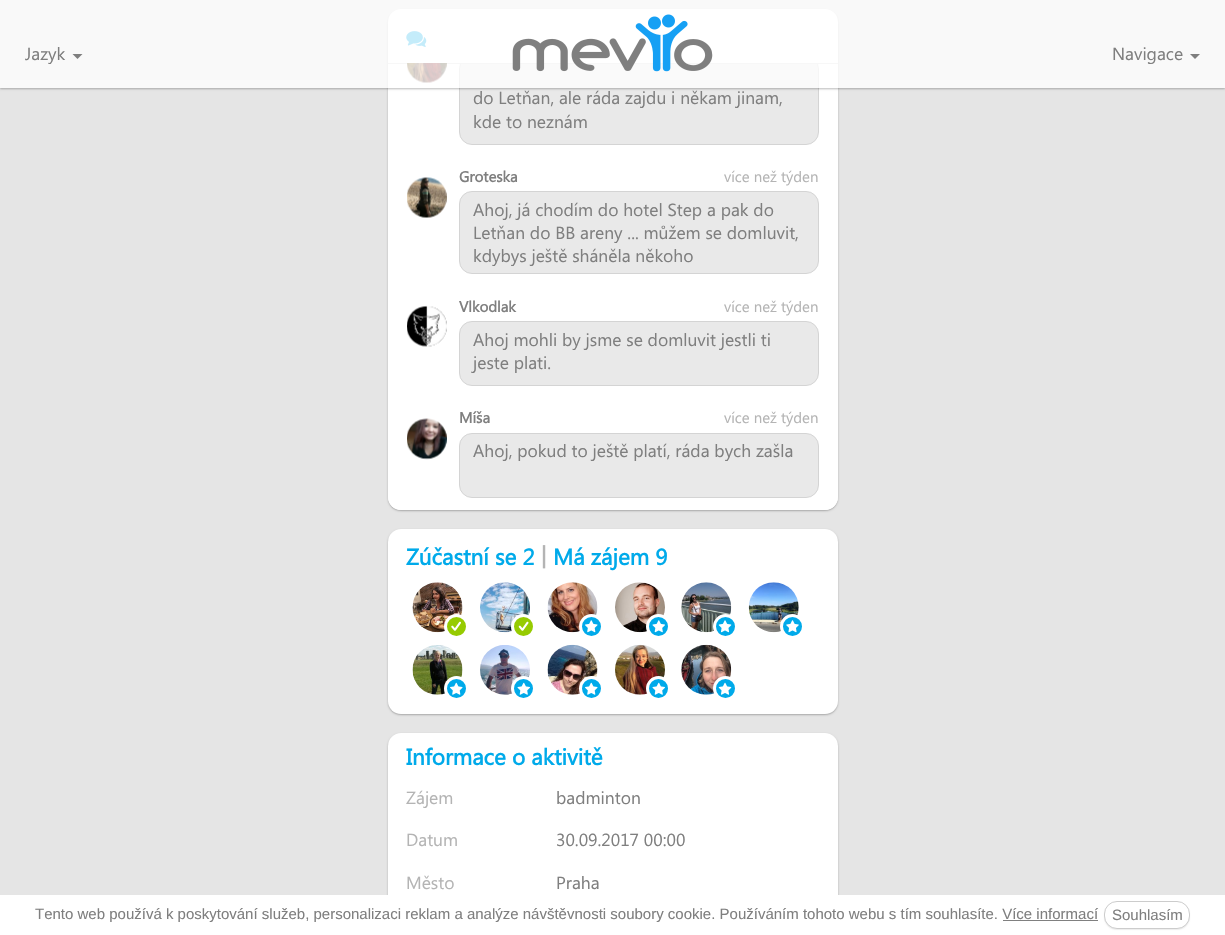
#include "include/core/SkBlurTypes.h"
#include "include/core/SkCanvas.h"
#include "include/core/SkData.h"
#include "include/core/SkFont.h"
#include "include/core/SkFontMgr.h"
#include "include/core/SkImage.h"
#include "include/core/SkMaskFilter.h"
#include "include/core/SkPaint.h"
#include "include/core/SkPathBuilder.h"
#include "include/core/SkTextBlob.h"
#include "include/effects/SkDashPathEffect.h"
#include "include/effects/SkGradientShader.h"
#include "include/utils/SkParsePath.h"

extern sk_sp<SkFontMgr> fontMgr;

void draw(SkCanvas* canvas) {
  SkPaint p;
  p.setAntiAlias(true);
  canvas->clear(SkColorSetRGB(229, 229, 229));
  p.setColor(SkColorSetARGB(69, 0, 0, 0));
  p.setMaskFilter(SkMaskFilter::MakeBlur(kNormal_SkBlurStyle, 1));
  canvas->drawRoundRect(SkRect::MakeLTRB(388, 10, 838, 511), 13, 13, p);
  p.setMaskFilter(nullptr);
  p.setColor(SK_ColorWHITE);
  canvas->drawRoundRect(SkRect::MakeLTRB(388, 9, 838, 510), 13, 13, p);
  p.setColor(SkColorSetRGB(221, 221, 221));
  canvas->drawRect(SkRect::MakeLTRB(388, 63, 838, 64), p);
  canvas->drawImageRect(SkImages::DeferredFromEncodedData(SkData::MakeFromFileName("images/2.png")), SkRect::MakeLTRB(406, 31, 427, 48), SkSamplingOptions());
  p.setColor(SK_ColorWHITE);
  canvas->drawPath(SkPathBuilder().moveTo(388, 64).lineTo(838, 64).lineTo(838, 497).cubicTo(838, 504, 832, 510, 825, 510).lineTo(401, 510).cubicTo(394, 510, 388, 504, 388, 497).close().detach(), p);
  canvas->drawImageRect(SkImages::DeferredFromEncodedData(SkData::MakeFromFileName("images/3.png")), SkRect::MakeLTRB(407, 63, 447, 83), SkSamplingOptions());
  canvas->save();
  canvas->clipRect(SkRect::MakeLTRB(388, 64, 838, 510));
  p.setColor(SkColorSetRGB(233, 233, 233));
  canvas->drawRoundRect(SkRect::MakeLTRB(459.5f, 56.5f, 818.5f, 144.5f), 12.5f, 12.5f, p);
  p.setStyle(SkPaint::kStroke_Style);
  p.setStrokeWidth(1);
  p.setColor(SkColorSetRGB(212, 212, 212));
  canvas->drawRoundRect(SkRect::MakeLTRB(459.5f, 56.5f, 818.5f, 144.5f), 12.5f, 12.5f, p);
  canvas->restore();
  canvas->save();
  canvas->clipPath(SkPathBuilder(SkPathFillType::kEvenOdd).moveTo(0, 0).lineTo(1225, 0).lineTo(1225, 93).lineTo(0, 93).close().moveTo(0, 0).lineTo(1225, 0).lineTo(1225, 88).lineTo(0, 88).close().detach(), true);
  p.setStyle(SkPaint::kFill_Style);
  p.setColor(SkColorSetARGB(69, 0, 0, 0));
  p.setMaskFilter(SkMaskFilter::MakeBlur(kNormal_SkBlurStyle, 1));
  canvas->drawRect(SkRect::MakeLTRB(0, 1, 1225, 89), p);
  p.setMaskFilter(nullptr);
  canvas->restore();
  p.setColor(SkColorSetARGB(196, 255, 255, 255));
  canvas->drawRect(SkRect::MakeLTRB(0, 0, 1225, 88), p);
  p.setColor(SkColorSetRGB(127, 127, 127));
  canvas->drawPath(SkPathBuilder().moveTo(72.5f, 54).lineTo(82.5f, 54).lineTo(77.5f, 59).close().detach(), p);
  canvas->drawImageRect(SkImages::DeferredFromEncodedData(SkData::MakeFromFileName("images/1.png")), SkRect::MakeLTRB(512, 14, 713, 72), SkSamplingOptions());
  canvas->drawPath(SkPathBuilder().moveTo(1190, 54).lineTo(1200, 54).lineTo(1195, 59).close().detach(), p);
  canvas->drawImageRect(SkImages::DeferredFromEncodedData(SkData::MakeFromFileName("images/4.png")), SkRect::MakeLTRB(407, 177, 447, 218), SkSamplingOptions());
  p.setColor(SkColorSetRGB(233, 233, 233));
  canvas->drawRoundRect(SkRect::MakeLTRB(459.5f, 191.5f, 818.5f, 273.5f), 12.5f, 12.5f, p);
  p.setStyle(SkPaint::kStroke_Style);
  p.setColor(SkColorSetRGB(212, 212, 212));
  canvas->drawRoundRect(SkRect::MakeLTRB(459.5f, 191.5f, 818.5f, 273.5f), 12.5f, 12.5f, p);
  canvas->drawImageRect(SkImages::DeferredFromEncodedData(SkData::MakeFromFileName("images/5.png")), SkRect::MakeLTRB(407, 305, 447, 347), SkSamplingOptions());
  p.setStyle(SkPaint::kFill_Style);
  p.setColor(SkColorSetRGB(233, 233, 233));
  canvas->drawRoundRect(SkRect::MakeLTRB(459.5f, 321.5f, 818.5f, 385.5f), 12.5f, 12.5f, p);
  p.setStyle(SkPaint::kStroke_Style);
  p.setColor(SkColorSetRGB(212, 212, 212));
  canvas->drawRoundRect(SkRect::MakeLTRB(459.5f, 321.5f, 818.5f, 385.5f), 12.5f, 12.5f, p);
  canvas->drawImageRect(SkImages::DeferredFromEncodedData(SkData::MakeFromFileName("images/6.png")), SkRect::MakeLTRB(407, 418, 447, 460), SkSamplingOptions());
  p.setStyle(SkPaint::kFill_Style);
  p.setColor(SkColorSetRGB(233, 233, 233));
  canvas->drawRoundRect(SkRect::MakeLTRB(459.5f, 433.5f, 818.5f, 497.5f), 12.5f, 12.5f, p);
  p.setStyle(SkPaint::kStroke_Style);
  p.setColor(SkColorSetRGB(212, 212, 212));
  canvas->drawRoundRect(SkRect::MakeLTRB(459.5f, 433.5f, 818.5f, 497.5f), 12.5f, 12.5f, p);
  p.setStyle(SkPaint::kFill_Style);
  p.setColor(SkColorSetARGB(69, 0, 0, 0));
  p.setMaskFilter(SkMaskFilter::MakeBlur(kNormal_SkBlurStyle, 1));
  canvas->drawRoundRect(SkRect::MakeLTRB(388, 530, 838, 715), 13, 13, p);
  p.setMaskFilter(nullptr);
  p.setColor(SK_ColorWHITE);
  canvas->drawRoundRect(SkRect::MakeLTRB(388, 529, 838, 714), 13, 13, p);
  canvas->drawImageRect(SkImages::DeferredFromEncodedData(SkData::MakeFromFileName("images/7.png")), SkRect::MakeLTRB(412, 582, 463, 633), SkSamplingOptions());
  p.setColor(SkColorSetRGB(150, 203, 1));
  canvas->drawCircle(456.5f, 626.5f, 11, p);
  p.setStyle(SkPaint::kStroke_Style);
  p.setStrokeWidth(3);
  p.setColor(SK_ColorWHITE);
  canvas->drawCircle(456.5f, 626.5f, 11, p);
  canvas->drawImageRect(SkImages::DeferredFromEncodedData(SkData::MakeFromFileName("images/8.png")), SkRect::MakeLTRB(451, 621, 461, 631), SkSamplingOptions());
  canvas->drawImageRect(SkImages::DeferredFromEncodedData(SkData::MakeFromFileName("images/9.png")), SkRect::MakeLTRB(480, 582, 530, 633), SkSamplingOptions());
  p.setStyle(SkPaint::kFill_Style);
  p.setColor(SkColorSetRGB(150, 203, 1));
  canvas->drawCircle(523.5f, 626.5f, 11, p);
  p.setStyle(SkPaint::kStroke_Style);
  p.setColor(SK_ColorWHITE);
  canvas->drawCircle(523.5f, 626.5f, 11, p);
  canvas->drawImageRect(SkImages::DeferredFromEncodedData(SkData::MakeFromFileName("images/10.png")), SkRect::MakeLTRB(518, 621, 529, 631), SkSamplingOptions());
  canvas->drawImageRect(SkImages::DeferredFromEncodedData(SkData::MakeFromFileName("images/11.png")), SkRect::MakeLTRB(547, 582, 598, 633), SkSamplingOptions());
  p.setStyle(SkPaint::kFill_Style);
  p.setColor(SkColorSetRGB(0, 170, 234));
  canvas->drawCircle(591.5f, 626.5f, 11, p);
  p.setStyle(SkPaint::kStroke_Style);
  p.setColor(SK_ColorWHITE);
  canvas->drawCircle(591.5f, 626.5f, 11, p);
  canvas->drawImageRect(SkImages::DeferredFromEncodedData(SkData::MakeFromFileName("images/12.png")), SkRect::MakeLTRB(585, 620, 598, 633), SkSamplingOptions());
  canvas->drawImageRect(SkImages::DeferredFromEncodedData(SkData::MakeFromFileName("images/13.png")), SkRect::MakeLTRB(615, 582, 665, 633), SkSamplingOptions());
  p.setStyle(SkPaint::kFill_Style);
  p.setColor(SkColorSetRGB(0, 170, 234));
  canvas->drawCircle(658.5f, 626.5f, 11, p);
  p.setStyle(SkPaint::kStroke_Style);
  p.setColor(SK_ColorWHITE);
  canvas->drawCircle(658.5f, 626.5f, 11, p);
  canvas->drawImageRect(SkImages::DeferredFromEncodedData(SkData::MakeFromFileName("images/14.png")), SkRect::MakeLTRB(652, 620, 665, 633), SkSamplingOptions());
  canvas->drawImageRect(SkImages::DeferredFromEncodedData(SkData::MakeFromFileName("images/15.png")), SkRect::MakeLTRB(681, 582, 732, 633), SkSamplingOptions());
  p.setStyle(SkPaint::kFill_Style);
  p.setColor(SkColorSetRGB(0, 170, 234));
  canvas->drawCircle(725.5f, 626.5f, 11, p);
  p.setStyle(SkPaint::kStroke_Style);
  p.setColor(SK_ColorWHITE);
  canvas->drawCircle(725.5f, 626.5f, 11, p);
  canvas->drawImageRect(SkImages::DeferredFromEncodedData(SkData::MakeFromFileName("images/16.png")), SkRect::MakeLTRB(718, 620, 732, 633), SkSamplingOptions());
  canvas->drawImageRect(SkImages::DeferredFromEncodedData(SkData::MakeFromFileName("images/17.png")), SkRect::MakeLTRB(748, 582, 799, 633), SkSamplingOptions());
  p.setStyle(SkPaint::kFill_Style);
  p.setColor(SkColorSetRGB(0, 170, 234));
  canvas->drawCircle(792.5f, 626.5f, 11, p);
  p.setStyle(SkPaint::kStroke_Style);
  p.setColor(SK_ColorWHITE);
  canvas->drawCircle(792.5f, 626.5f, 11, p);
  canvas->drawImageRect(SkImages::DeferredFromEncodedData(SkData::MakeFromFileName("images/18.png")), SkRect::MakeLTRB(786, 620, 799, 633), SkSamplingOptions());
  canvas->drawImageRect(SkImages::DeferredFromEncodedData(SkData::MakeFromFileName("images/19.png")), SkRect::MakeLTRB(412, 645, 463, 695), SkSamplingOptions());
  p.setStyle(SkPaint::kFill_Style);
  p.setColor(SkColorSetRGB(0, 170, 234));
  canvas->drawCircle(456.5f, 688.5f, 11, p);
  p.setStyle(SkPaint::kStroke_Style);
  p.setColor(SK_ColorWHITE);
  canvas->drawCircle(456.5f, 688.5f, 11, p);
  canvas->drawImageRect(SkImages::DeferredFromEncodedData(SkData::MakeFromFileName("images/20.png")), SkRect::MakeLTRB(450, 682, 463, 695), SkSamplingOptions());
  canvas->drawImageRect(SkImages::DeferredFromEncodedData(SkData::MakeFromFileName("images/21.png")), SkRect::MakeLTRB(480, 645, 530, 695), SkSamplingOptions());
  p.setStyle(SkPaint::kFill_Style);
  p.setColor(SkColorSetRGB(0, 170, 234));
  canvas->drawCircle(523.5f, 688.5f, 11, p);
  p.setStyle(SkPaint::kStroke_Style);
  p.setColor(SK_ColorWHITE);
  canvas->drawCircle(523.5f, 688.5f, 11, p);
  canvas->drawImageRect(SkImages::DeferredFromEncodedData(SkData::MakeFromFileName("images/22.png")), SkRect::MakeLTRB(517, 682, 530, 695), SkSamplingOptions());
  canvas->drawImageRect(SkImages::DeferredFromEncodedData(SkData::MakeFromFileName("images/23.png")), SkRect::MakeLTRB(547, 644, 598, 695), SkSamplingOptions());
  p.setStyle(SkPaint::kFill_Style);
  p.setColor(SkColorSetRGB(0, 170, 234));
  canvas->drawCircle(591.5f, 688.5f, 11, p);
  p.setStyle(SkPaint::kStroke_Style);
  p.setColor(SK_ColorWHITE);
  canvas->drawCircle(591.5f, 688.5f, 11, p);
  canvas->drawImageRect(SkImages::DeferredFromEncodedData(SkData::MakeFromFileName("images/20.png")), SkRect::MakeLTRB(585, 682, 598, 695), SkSamplingOptions());
  canvas->drawImageRect(SkImages::DeferredFromEncodedData(SkData::MakeFromFileName("images/24.png")), SkRect::MakeLTRB(615, 644, 665, 695), SkSamplingOptions());
  p.setStyle(SkPaint::kFill_Style);
  p.setColor(SkColorSetRGB(0, 170, 234));
  canvas->drawCircle(658.5f, 688.5f, 11, p);
  p.setStyle(SkPaint::kStroke_Style);
  p.setColor(SK_ColorWHITE);
  canvas->drawCircle(658.5f, 688.5f, 11, p);
  canvas->drawImageRect(SkImages::DeferredFromEncodedData(SkData::MakeFromFileName("images/22.png")), SkRect::MakeLTRB(652, 682, 665, 695), SkSamplingOptions());
  canvas->drawImageRect(SkImages::DeferredFromEncodedData(SkData::MakeFromFileName("images/25.png")), SkRect::MakeLTRB(681, 644, 732, 695), SkSamplingOptions());
  p.setStyle(SkPaint::kFill_Style);
  p.setColor(SkColorSetRGB(0, 170, 234));
  canvas->drawCircle(725.5f, 688.5f, 11, p);
  p.setStyle(SkPaint::kStroke_Style);
  p.setColor(SK_ColorWHITE);
  canvas->drawCircle(725.5f, 688.5f, 11, p);
  canvas->drawImageRect(SkImages::DeferredFromEncodedData(SkData::MakeFromFileName("images/26.png")), SkRect::MakeLTRB(718, 682, 732, 695), SkSamplingOptions());
  p.setStyle(SkPaint::kFill_Style);
  p.setColor(SkColorSetARGB(69, 0, 0, 0));
  p.setMaskFilter(SkMaskFilter::MakeBlur(kNormal_SkBlurStyle, 1));
  canvas->drawRoundRect(SkRect::MakeLTRB(388, 734, 838, 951), 13, 13, p);
  p.setMaskFilter(nullptr);
  p.setColor(SK_ColorWHITE);
  canvas->drawRoundRect(SkRect::MakeLTRB(388, 733, 838, 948), 13, 13, p);
  canvas->drawRect(SkRect::MakeLTRB(0, 895, 1225, 935), p);
  p.setColor(SkColorSetARGB(18, 0, 0, 0));
  p.setMaskFilter(SkMaskFilter::MakeBlur(kNormal_SkBlurStyle, 0.5f));
  canvas->drawRoundRect(SkRect::MakeLTRB(1104, 903, 1190, 930), 13, 13, p);
  p.setMaskFilter(nullptr);
  p.setColor(SK_ColorWHITE);
  canvas->drawRoundRect(SkRect::MakeLTRB(1104.5f, 901.5f, 1189.5f, 928.5f), 12.5f, 12.5f, p);
  p.setStyle(SkPaint::kStroke_Style);
  p.setStrokeWidth(1);
  p.setColor(SkColorSetRGB(204, 204, 204));
  canvas->drawRoundRect(SkRect::MakeLTRB(1104.5f, 901.5f, 1189.5f, 928.5f), 12.5f, 12.5f, p);
  SkFont font1(fontMgr->matchFamilyStyle("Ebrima", SkFontStyle::Normal()), 17.5f);
  font1.setSubpixel(true);
  p.setStyle(SkPaint::kFill_Style);
  p.setColor(SkColorSetRGB(127, 127, 127));
  canvas->drawString("Jazyk", 25, 60, font1, p);
  canvas->drawString("Navigace", 1112, 60, font1, p);
  canvas->drawString("do Letňan, ale ráda zajdu i někam jinam,", 473, 104, font1, p);
  canvas->drawString("kde to neznám", 473, 128, font1, p);
  SkFont font2(fontMgr->matchFamilyStyle("Ebrima", SkFontStyle::Bold()), 15);
  font2.setSubpixel(true);
  canvas->drawString("Groteska", 459, 182, font2, p);
  SkFont font3(fontMgr->matchFamilyStyle("Ebrima", SkFontStyle::Normal()), 15);
  font3.setSubpixel(true);
  p.setColor(SkColorSetRGB(180, 180, 180));
  canvas->drawString("více než týden", 724, 182, font3, p);
  p.setColor(SkColorSetRGB(127, 127, 127));
  canvas->drawString("Ahoj, já chodím do hotel Step a pak do", 473, 216, font1, p);
  canvas->drawString("Letňan do BB areny ... můžem se domluvit,", 473, 239, font1, p);
  canvas->drawString("kdybys ještě sháněla někoho", 473, 262, font1, p);
  canvas->drawString("Vlkodlak", 459, 312, font2, p);
  p.setColor(SkColorSetRGB(180, 180, 180));
  canvas->drawString("více než týden", 724, 312, font3, p);
  p.setColor(SkColorSetRGB(127, 127, 127));
  canvas->drawString("Ahoj mohli by jsme se domluvit jestli ti", 473, 346, font1, p);
  canvas->drawString("jeste plati.", 473, 369, font1, p);
  canvas->drawString("Míša", 459, 423, font2, p);
  p.setColor(SkColorSetRGB(180, 180, 180));
  canvas->drawString("více než týden", 724, 423, font3, p);
  p.setColor(SkColorSetRGB(127, 127, 127));
  canvas->drawString("Ahoj, pokud to ještě platí, ráda bych zašla", 473, 457, font1, p);
  SkFont font4(fontMgr->matchFamilyStyle("Ebrima", SkFontStyle::Bold()), 22.5f);
  font4.setSubpixel(true);
  p.setColor(SkColorSetRGB(0, 170, 234));
  canvas->drawString("Zúčastní se 2", 406, 565, font4, p);
  p.setColor(SkColorSetRGB(180, 180, 180));
  canvas->drawString("|", 541, 563, font4, p);
  p.setColor(SkColorSetRGB(0, 170, 234));
  canvas->drawString("Má zájem 9", 553, 565, font4, p);
  canvas->drawString("Informace o aktivitě", 406, 765, font4, p);
  p.setColor(SkColorSetRGB(180, 180, 180));
  canvas->drawString("Zájem", 406, 804, font1, p);
  p.setColor(SkColorSetRGB(127, 127, 127));
  canvas->drawString("badminton", 556, 804, font1, p);
  p.setColor(SkColorSetRGB(180, 180, 180));
  canvas->drawString("Datum", 406, 846, font1, p);
  p.setColor(SkColorSetRGB(127, 127, 127));
  canvas->drawString("30.09.2017 00:00", 556, 846, font1, p);
  p.setColor(SkColorSetRGB(180, 180, 180));
  canvas->drawString("Město", 406, 889, font1, p);
  p.setColor(SkColorSetRGB(127, 127, 127));
  canvas->drawString("Praha", 556, 889, font1, p);
  SkFont font5(fontMgr->matchFamilyStyle("Liberation Sans", SkFontStyle::Normal()), 15);
  font5.setSubpixel(true);
  canvas->drawString("Tento web používá k poskytování služeb, personalizaci reklam a analýze návštěvnosti soubory cookie. Používáním tohoto webu s tím souhlasíte. Více informací", 35, 919, font5, p);
  p.setColor(SkColorSetRGB(128, 128, 128));
  canvas->drawRect(SkRect::MakeLTRB(1003, 920, 1098, 921), p);
  p.setColor(SkColorSetRGB(127, 127, 127));
  canvas->drawString("Souhlasím", 1112, 920, font5, p);
}
